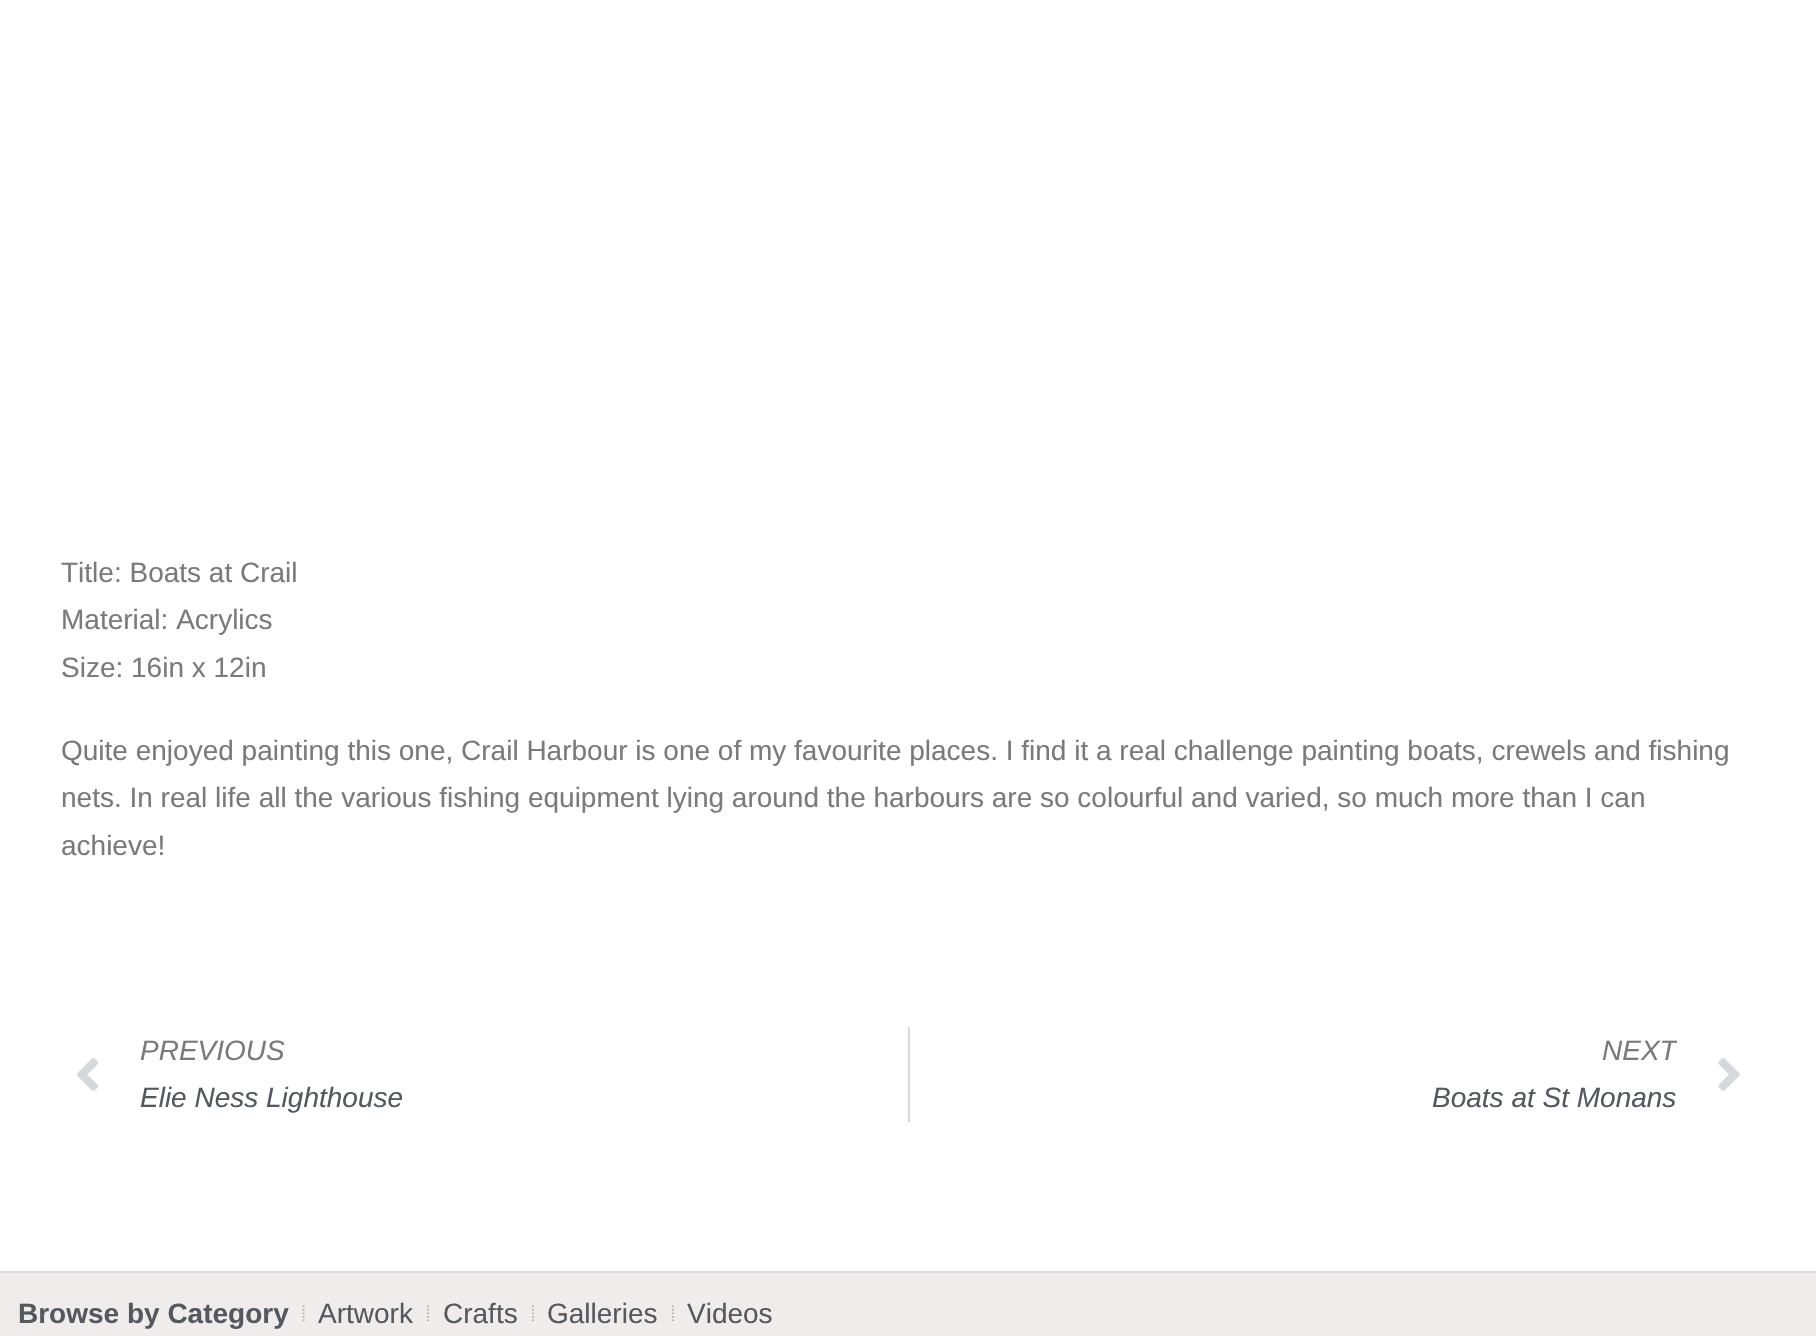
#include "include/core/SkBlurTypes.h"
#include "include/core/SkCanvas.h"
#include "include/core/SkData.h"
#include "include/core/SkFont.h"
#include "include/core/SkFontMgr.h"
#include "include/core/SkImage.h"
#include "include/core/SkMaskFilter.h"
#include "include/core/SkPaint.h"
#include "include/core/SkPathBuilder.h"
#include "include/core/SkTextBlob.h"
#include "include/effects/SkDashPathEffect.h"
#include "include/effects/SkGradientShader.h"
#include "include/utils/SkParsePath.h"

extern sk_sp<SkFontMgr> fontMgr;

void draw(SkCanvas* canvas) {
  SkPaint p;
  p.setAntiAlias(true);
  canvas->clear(SK_ColorWHITE);
  canvas->drawImageRect(SkImages::DeferredFromEncodedData(SkData::MakeFromFileName("images/1.png")), SkRect::MakeLTRB(77, 1058, 98, 1091), SkSamplingOptions());
  p.setColor(SkColorSetRGB(213, 216, 220));
  canvas->drawRect(SkRect::MakeLTRB(908, 1027, 910, 1122), p);
  canvas->drawImageRect(SkImages::DeferredFromEncodedData(SkData::MakeFromFileName("images/2.png")), SkRect::MakeLTRB(1718, 1058, 1740, 1091), SkSamplingOptions());
  p.setColor(SkColorSetRGB(241, 236, 236));
  canvas->drawRect(SkRect::MakeLTRB(0, 1273, 1816, 1336), p);
  p.setColor(SkColorSetRGB(218, 218, 218));
  canvas->drawRect(SkRect::MakeLTRB(0, 1271, 1816, 1273), p);
  p.setStyle(SkPaint::kStroke_Style);
  p.setStrokeWidth(1.8f);
  p.setColor(SkColorSetRGB(177, 177, 177));
  p.setPathEffect(SkDashPathEffect::Make({{1.75f, 1.75f}}, 0));
  canvas->drawPath(SkPathBuilder().moveTo(303.5f, 1305.5f).lineTo(303.5f, 1321).detach(), p);
  p.setPathEffect(nullptr);
  p.setPathEffect(SkDashPathEffect::Make({{1.75f, 1.75f}}, 0));
  canvas->drawPath(SkPathBuilder().moveTo(428, 1305.5f).lineTo(428, 1321).detach(), p);
  p.setPathEffect(nullptr);
  p.setPathEffect(SkDashPathEffect::Make({{1.75f, 1.75f}}, 0));
  canvas->drawPath(SkPathBuilder().moveTo(533, 1305.5f).lineTo(533, 1321).detach(), p);
  p.setPathEffect(nullptr);
  p.setPathEffect(SkDashPathEffect::Make({{1.75f, 1.75f}}, 0));
  canvas->drawPath(SkPathBuilder().moveTo(673, 1305.5f).lineTo(673, 1321).detach(), p);
  p.setPathEffect(nullptr);
  SkFont font1(fontMgr->matchFamilyStyle("Liberation Sans", SkFontStyle::Normal()), 28);
  font1.setSubpixel(true);
  p.setStyle(SkPaint::kFill_Style);
  p.setColor(SkColorSetRGB(122, 122, 122));
  canvas->drawString("Title: Boats at Crail", 61, 582, font1, p);
  canvas->drawString("Material: Acrylics", 61, 629, font1, p);
  canvas->drawString("Size: 16in x 12in", 61, 677, font1, p);
  canvas->drawString("Quite enjoyed painting this one, Crail Harbour is one of my favourite places. I find it a real challenge painting boats, crewels and fishing", 61, 760, font1, p);
  canvas->drawString("nets. In real life all the various fishing equipment lying around the harbours are so colourful and varied, so much more than I can", 61, 807, font1, p);
  canvas->drawString("achieve!", 61, 855, font1, p);
  SkFont font2(fontMgr->matchFamilyStyle("Liberation Sans", SkFontStyle::Italic()), 28);
  font2.setSubpixel(true);
  canvas->drawString("PREVIOUS", 140, 1060, font2, p);
  p.setColor(SkColorSetRGB(84, 89, 95));
  canvas->drawString("Elie Ness Lighthouse", 140, 1107, font2, p);
  canvas->save();
  canvas->clipRect(SkRect::MakeLTRB(1432, 1027, 1677, 1075));
  p.setColor(SkColorSetRGB(122, 122, 122));
  canvas->drawString("NEXT", 1602, 1060, font2, p);
  canvas->restore();
  p.setColor(SkColorSetRGB(84, 89, 95));
  canvas->drawString("Boats at St Monans", 1432, 1107, font2, p);
  SkFont font3(fontMgr->matchFamilyStyle("Liberation Sans", SkFontStyle::Bold()), 28);
  font3.setSubpixel(true);
  canvas->drawString("Browse by Category", 18, 1323, font3, p);
  canvas->drawString("Artwork", 318, 1323, font1, p);
  canvas->drawString("Crafts", 443, 1323, font1, p);
  canvas->drawString("Galleries", 547, 1323, font1, p);
  canvas->drawString("Videos", 687, 1323, font1, p);
}
